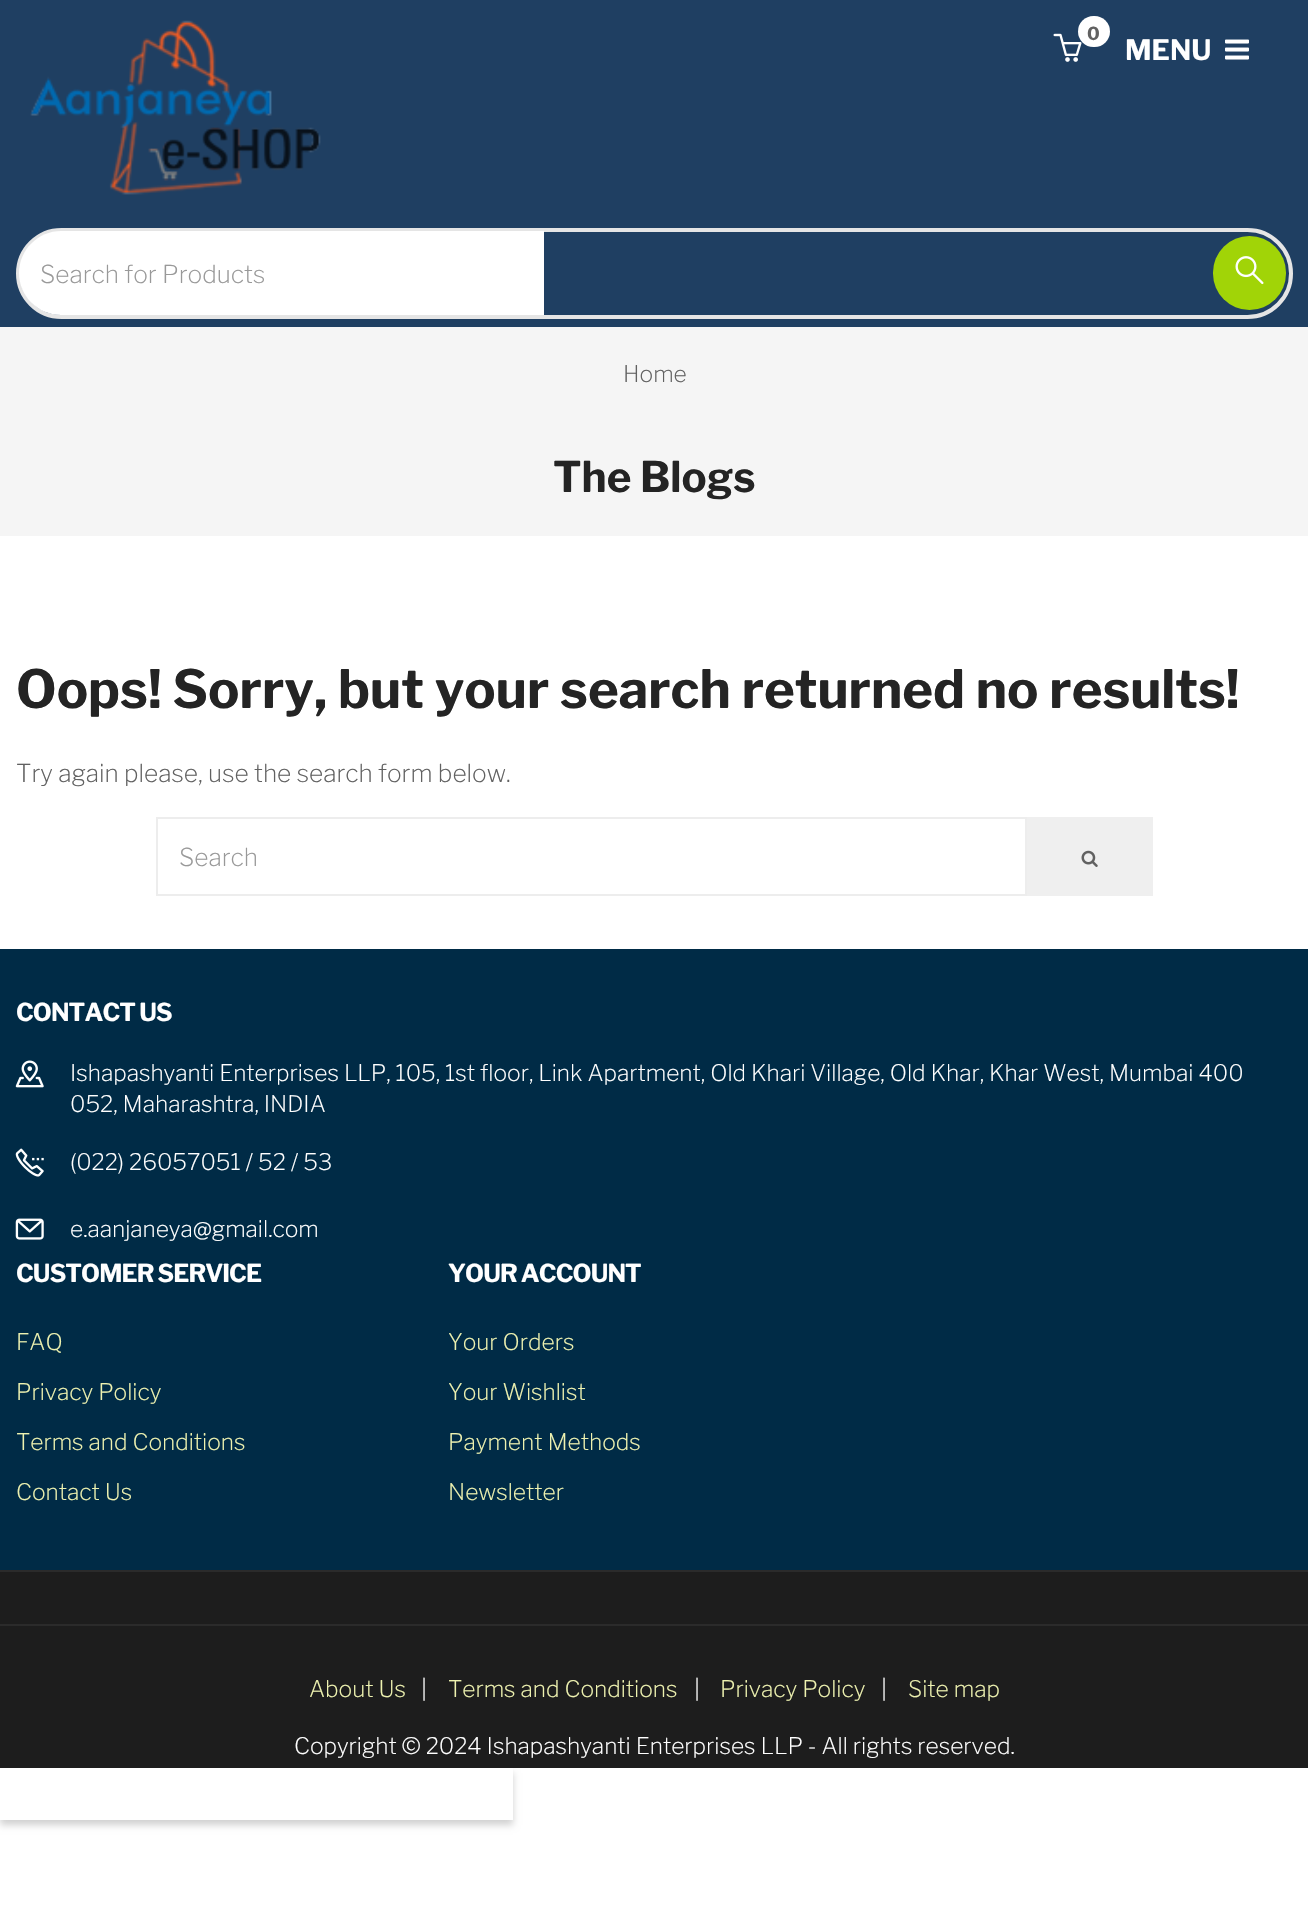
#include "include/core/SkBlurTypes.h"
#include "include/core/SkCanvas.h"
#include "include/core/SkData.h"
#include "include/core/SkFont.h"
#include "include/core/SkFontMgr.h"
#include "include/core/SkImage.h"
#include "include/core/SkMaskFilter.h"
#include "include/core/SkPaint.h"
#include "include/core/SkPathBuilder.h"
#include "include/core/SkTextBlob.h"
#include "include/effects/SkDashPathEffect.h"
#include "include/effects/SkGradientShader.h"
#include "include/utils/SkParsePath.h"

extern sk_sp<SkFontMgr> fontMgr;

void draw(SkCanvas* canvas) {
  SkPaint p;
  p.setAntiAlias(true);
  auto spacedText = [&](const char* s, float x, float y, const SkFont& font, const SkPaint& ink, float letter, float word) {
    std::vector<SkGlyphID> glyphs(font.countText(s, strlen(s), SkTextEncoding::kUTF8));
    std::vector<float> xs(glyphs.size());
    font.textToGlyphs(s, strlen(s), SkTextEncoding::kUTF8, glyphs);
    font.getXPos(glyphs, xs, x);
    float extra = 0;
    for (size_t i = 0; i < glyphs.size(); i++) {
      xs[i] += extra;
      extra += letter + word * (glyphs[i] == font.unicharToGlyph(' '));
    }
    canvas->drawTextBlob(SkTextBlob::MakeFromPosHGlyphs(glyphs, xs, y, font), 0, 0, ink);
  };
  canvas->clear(SK_ColorWHITE);
  p.setColor(SkColorSetRGB(31, 63, 98));
  canvas->drawRect(SkRect::MakeLTRB(0, 0, 1308, 327), p);
  canvas->drawImageRect(SkImages::DeferredFromEncodedData(SkData::MakeFromFileName("images/1.png")), SkRect::MakeLTRB(30, 20, 321, 195), SkSamplingOptions());
  canvas->drawImageRect(SkImages::DeferredFromEncodedData(SkData::MakeFromFileName("images/2.png")), SkRect::MakeLTRB(1053, 33, 1082, 62), SkSamplingOptions());
  p.setColor(SK_ColorWHITE);
  canvas->drawRoundRect(SkRect::MakeLTRB(1078, 16, 1110, 47), 15.5f, 15.5f, p);
  canvas->drawImageRect(SkImages::DeferredFromEncodedData(SkData::MakeFromFileName("images/3.png")), SkRect::MakeLTRB(1225, 39, 1249, 60), SkSamplingOptions());
  p.setStyle(SkPaint::kStroke_Style);
  p.setStrokeWidth(4);
  p.setColor(SkColorSetRGB(229, 229, 229));
  canvas->drawRoundRect(SkRect::MakeLTRB(18, 230, 1291, 317), 43.5f, 43.5f, p);
  p.setStyle(SkPaint::kFill_Style);
  p.setColor(SK_ColorWHITE);
  canvas->drawPath(SkPathBuilder().moveTo(61, 231).lineTo(544, 231).lineTo(544, 315).lineTo(61, 315).cubicTo(38, 315, 19, 296, 19, 273).cubicTo(19, 250, 38, 231, 61, 231).close().detach(), p);
  p.setColor(SkColorSetRGB(161, 212, 7));
  canvas->drawRoundRect(SkRect::MakeLTRB(1213, 236, 1286, 310), 36.5f, 36.5f, p);
  canvas->drawImageRect(SkImages::DeferredFromEncodedData(SkData::MakeFromFileName("images/4.png")), SkRect::MakeLTRB(1235, 256, 1264, 285), SkSamplingOptions());
  p.setColor(SkColorSetRGB(245, 245, 245));
  canvas->drawRect(SkRect::MakeLTRB(0, 327, 1308, 536), p);
  p.setStyle(SkPaint::kStroke_Style);
  p.setStrokeWidth(2);
  p.setColor(SkColorSetRGB(237, 237, 237));
  canvas->drawRect(SkRect::MakeLTRB(157, 818, 1026, 895), p);
  p.setStyle(SkPaint::kFill_Style);
  p.setColor(SkColorSetRGB(239, 239, 239));
  canvas->drawRect(SkRect::MakeLTRB(1027, 817, 1153, 896), p);
  canvas->drawImageRect(SkImages::DeferredFromEncodedData(SkData::MakeFromFileName("images/5.png")), SkRect::MakeLTRB(1081, 850, 1098, 867), SkSamplingOptions());
  p.setColor(SkColorSetARGB(46, 0, 0, 0));
  p.setMaskFilter(SkMaskFilter::MakeBlur(kNormal_SkBlurStyle, 3.5f));
  canvas->drawRect(SkRect::MakeLTRB(0, 1773, 513, 1825), p);
  p.setMaskFilter(nullptr);
  p.setColor(SkColorSetRGB(29, 29, 29));
  canvas->drawRect(SkRect::MakeLTRB(0, 1572, 1308, 1768), p);
  p.setColor(SkColorSetRGB(0, 43, 70));
  canvas->drawRect(SkRect::MakeLTRB(0, 949, 1308, 1570), p);
  canvas->drawImageRect(SkImages::DeferredFromEncodedData(SkData::MakeFromFileName("images/6.png")), SkRect::MakeLTRB(15, 1060, 44, 1088), SkSamplingOptions());
  canvas->drawImageRect(SkImages::DeferredFromEncodedData(SkData::MakeFromFileName("images/7.png")), SkRect::MakeLTRB(15, 1148, 44, 1177), SkSamplingOptions());
  canvas->drawImageRect(SkImages::DeferredFromEncodedData(SkData::MakeFromFileName("images/8.png")), SkRect::MakeLTRB(15, 1218, 44, 1240), SkSamplingOptions());
  p.setColor(SkColorSetRGB(43, 43, 43));
  canvas->drawRect(SkRect::MakeLTRB(0, 1570, 1308, 1572), p);
  canvas->drawRect(SkRect::MakeLTRB(0, 1624, 1308, 1626), p);
  p.setColor(SK_ColorWHITE);
  canvas->drawRect(SkRect::MakeLTRB(0, 1768, 513, 1820), p);
  SkFont font1(fontMgr->matchFamilyStyle("Libre Franklin", SkFontStyle::Bold()), 18);
  font1.setSubpixel(true);
  p.setColor(SkColorSetRGB(97, 97, 97));
  canvas->drawString("0", 1087, 40, font1, p);
  SkFont font2(fontMgr->matchFamilyStyle("Libre Franklin", SkFontStyle::Bold()), 28);
  font2.setSubpixel(true);
  p.setColor(SK_ColorWHITE);
  canvas->drawString("MENU", 1125, 60, font2, p);
  SkFont font3(fontMgr->matchFamilyStyle("Libre Franklin", SkFontStyle(200, SkFontStyle::kNormal_Width, SkFontStyle::kUpright_Slant)), 24.5f);
  font3.setSubpixel(true);
  p.setColor(SkColorSetRGB(153, 153, 153));
  canvas->drawString("Search for Products", 40, 283, font3, p);
  SkFont font4(fontMgr->matchFamilyStyle("Libre Franklin", SkFontStyle(200, SkFontStyle::kNormal_Width, SkFontStyle::kUpright_Slant)), 22.75f);
  font4.setSubpixel(true);
  p.setColor(SkColorSetRGB(97, 97, 97));
  canvas->drawString("Home", 623, 382, font4, p);
  SkFont font5(fontMgr->matchFamilyStyle("Libre Franklin", SkFontStyle::Bold()), 42);
  font5.setSubpixel(true);
  p.setColor(SkColorSetRGB(36, 36, 36));
  canvas->drawString("The Blogs", 553, 492, font5, p);
  SkFont font6(fontMgr->matchFamilyStyle("Libre Franklin", SkFontStyle::Bold()), 52.5f);
  font6.setSubpixel(true);
  canvas->drawString("Oops! Sorry, but your search returned no results!", 16, 708, font6, p);
  p.setColor(SkColorSetRGB(97, 97, 97));
  canvas->drawString("Try again please, use the search form below.", 16, 782, font3, p);
  p.setColor(SkColorSetRGB(153, 153, 153));
  canvas->drawString("Search", 179, 866, font3, p);
  SkFont font7(fontMgr->matchFamilyStyle("Libre Franklin", SkFontStyle::Bold()), 24.5f);
  font7.setSubpixel(true);
  p.setColor(SK_ColorWHITE);
  spacedText("CONTACT US", 16, 1021, font7, p, -0.9f, 0);
  canvas->drawString("Ishapashyanti Enterprises LLP, 105, 1st floor, Link Apartment, Old Khari Village, Old Khar, Khar West, Mumbai 400", 70, 1081, font4, p);
  canvas->drawString("052, Maharashtra, INDIA", 70, 1112, font4, p);
  canvas->drawString("(022) 26057051 / 52 / 53", 70, 1170, font4, p);
  canvas->drawString("e.aanjaneya@gmail.com", 70, 1237, font4, p);
  spacedText("CUSTOMER SERVICE", 16, 1282, font7, p, -0.9f, 0);
  p.setColor(SkColorSetRGB(238, 242, 176));
  canvas->drawString("FAQ", 16, 1350, font4, p);
  canvas->drawString("Privacy Policy", 16, 1400, font4, p);
  canvas->drawString("Terms and Conditions", 16, 1450, font4, p);
  canvas->drawString("Contact Us", 16, 1500, font4, p);
  p.setColor(SK_ColorWHITE);
  spacedText("YOUR ACCOUNT", 448, 1282, font7, p, -0.9f, 0);
  p.setColor(SkColorSetRGB(238, 242, 176));
  canvas->drawString("Your Orders", 448, 1350, font4, p);
  canvas->drawString("Your Wishlist", 448, 1400, font4, p);
  canvas->drawString("Payment Methods", 448, 1450, font4, p);
  canvas->drawString("Newsletter", 448, 1500, font4, p);
  canvas->drawString("About Us", 309, 1697, font4, p);
  p.setColor(SK_ColorWHITE);
  canvas->drawString("|", 421, 1697, font4, p);
  p.setColor(SkColorSetRGB(238, 242, 176));
  canvas->drawString("Terms and Conditions", 448, 1697, font4, p);
  p.setColor(SK_ColorWHITE);
  canvas->drawString("|", 694, 1697, font4, p);
  p.setColor(SkColorSetRGB(238, 242, 176));
  canvas->drawString("Privacy Policy", 720, 1697, font4, p);
  p.setColor(SK_ColorWHITE);
  canvas->drawString("|", 881, 1697, font4, p);
  p.setColor(SkColorSetRGB(238, 242, 176));
  canvas->drawString("Site map", 908, 1697, font4, p);
  p.setColor(SK_ColorWHITE);
  canvas->drawString("Copyright © 2024 Ishapashyanti Enterprises LLP - All rights reserved.", 294, 1754, font4, p);
}
